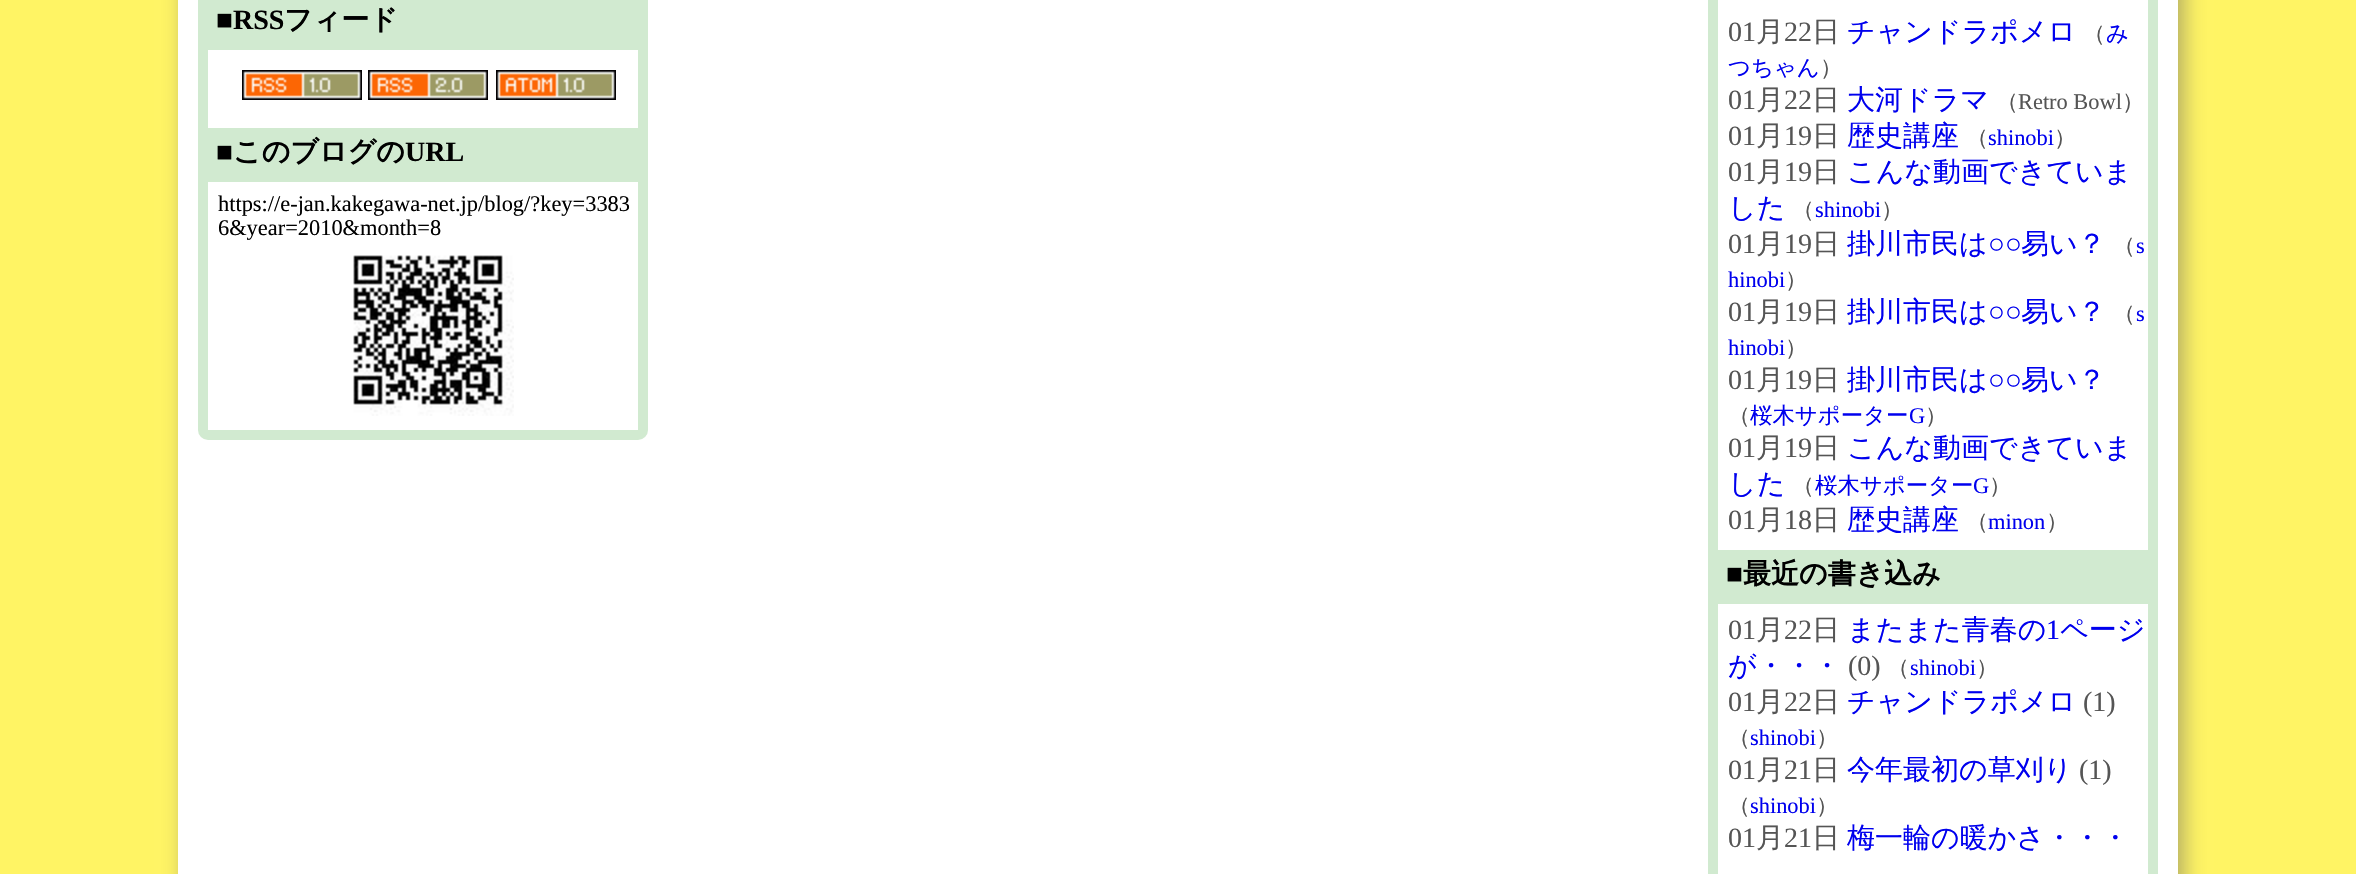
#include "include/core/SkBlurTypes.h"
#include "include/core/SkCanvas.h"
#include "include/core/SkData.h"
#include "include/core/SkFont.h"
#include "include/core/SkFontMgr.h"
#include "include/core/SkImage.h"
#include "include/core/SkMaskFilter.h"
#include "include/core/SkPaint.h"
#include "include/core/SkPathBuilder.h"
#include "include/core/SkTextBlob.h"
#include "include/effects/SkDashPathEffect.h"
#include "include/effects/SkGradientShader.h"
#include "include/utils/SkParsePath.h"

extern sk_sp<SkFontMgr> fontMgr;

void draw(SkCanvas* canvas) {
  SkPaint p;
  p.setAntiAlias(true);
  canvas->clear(SkColorSetRGB(255, 244, 100));
  p.setColor(SkColorSetARGB(128, 100, 100, 100));
  p.setMaskFilter(SkMaskFilter::MakeBlur(kNormal_SkBlurStyle, 10));
  canvas->drawRect(SkRect::MakeLTRB(184, -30, 2184, 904), p);
  p.setMaskFilter(nullptr);
  p.setColor(SK_ColorWHITE);
  canvas->drawRect(SkRect::MakeLTRB(178, 0, 2178, 874), p);
  p.setColor(SkColorSetRGB(209, 234, 208));
  canvas->drawRoundRect(SkRect::MakeLTRB(198, -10, 648, 440), 10, 10, p);
  p.setColor(SK_ColorWHITE);
  canvas->drawRect(SkRect::MakeLTRB(208, 50, 638, 128), p);
  canvas->drawImageRect(SkImages::DeferredFromEncodedData(SkData::MakeFromFileName("images/1.png")), SkRect::MakeLTRB(242, 70, 362, 100), SkSamplingOptions());
  canvas->drawImageRect(SkImages::DeferredFromEncodedData(SkData::MakeFromFileName("images/2.png")), SkRect::MakeLTRB(368, 70, 488, 100), SkSamplingOptions());
  canvas->drawImageRect(SkImages::DeferredFromEncodedData(SkData::MakeFromFileName("images/3.png")), SkRect::MakeLTRB(496, 70, 616, 100), SkSamplingOptions());
  canvas->drawRect(SkRect::MakeLTRB(208, 182, 638, 430), p);
  canvas->drawImageRect(SkImages::DeferredFromEncodedData(SkData::MakeFromFileName("images/4.png")), SkRect::MakeLTRB(353, 255, 514, 416), SkSamplingOptions());
  p.setColor(SkColorSetRGB(209, 234, 208));
  canvas->drawRect(SkRect::MakeLTRB(1708, 0, 2158, 874), p);
  p.setColor(SK_ColorWHITE);
  canvas->drawRect(SkRect::MakeLTRB(1718, 0, 2148, 550), p);
  canvas->drawRect(SkRect::MakeLTRB(1718, 604, 2148, 874), p);
  SkFont font1(fontMgr->matchFamilyStyle("Liberation Serif", SkFontStyle::Bold()), 28);
  font1.setSubpixel(true);
  p.setColor(SK_ColorBLACK);
  canvas->drawString("■RSS", 216, 29, font1, p);
  SkFont font2(fontMgr->matchFamilyStyle("WenQuanYi Zen Hei", SkFontStyle::Bold()), 28);
  font2.setSubpixel(true);
  canvas->drawString("フィード", 284, 29, font2, p);
  canvas->drawString("■", 216, 161, font1, p);
  canvas->drawString("このブログの", 233, 161, font2, p);
  canvas->drawString("URL", 405, 161, font1, p);
  SkFont font3(fontMgr->matchFamilyStyle("Liberation Serif", SkFontStyle::Normal()), 22.4f);
  font3.setSubpixel(true);
  canvas->drawString("https://e-jan.kakegawa-net.jp/blog/?key=3383", 218, 211, font3, p);
  canvas->drawString("6&year=2010&month=8", 218, 235, font3, p);
  SkFont font4(fontMgr->matchFamilyStyle("Liberation Serif", SkFontStyle::Normal()), 28);
  font4.setSubpixel(true);
  p.setColor(SkColorSetRGB(85, 85, 85));
  canvas->drawString("01", 1728, 41, font4, p);
  SkFont font5(fontMgr->matchFamilyStyle("WenQuanYi Zen Hei", SkFontStyle(500, SkFontStyle::kNormal_Width, SkFontStyle::kUpright_Slant)), 28);
  font5.setSubpixel(true);
  canvas->drawString("月", 1756, 41, font5, p);
  canvas->drawString("22", 1784, 41, font4, p);
  canvas->drawString("日", 1812, 41, font5, p);
  p.setColor(SkColorSetRGB(0, 0, 238));
  canvas->drawString("チャンドラポメロ", 1847, 41, font5, p);
  SkFont font6(fontMgr->matchFamilyStyle("WenQuanYi Zen Hei", SkFontStyle(500, SkFontStyle::kNormal_Width, SkFontStyle::kUpright_Slant)), 22.4f);
  font6.setSubpixel(true);
  p.setColor(SkColorSetRGB(85, 85, 85));
  canvas->drawString("（", 2083, 41, font6, p);
  p.setColor(SkColorSetRGB(0, 0, 238));
  canvas->drawString("み", 2106, 41, font6, p);
  canvas->drawString("つちゃん", 1728, 75, font6, p);
  p.setColor(SkColorSetRGB(85, 85, 85));
  canvas->drawString("）", 1820, 75, font6, p);
  canvas->drawString("01", 1728, 109, font4, p);
  canvas->drawString("月", 1756, 109, font5, p);
  canvas->drawString("22", 1784, 109, font4, p);
  canvas->drawString("日", 1812, 109, font5, p);
  p.setColor(SkColorSetRGB(0, 0, 238));
  canvas->drawString("大河ドラマ", 1847, 109, font5, p);
  p.setColor(SkColorSetRGB(85, 85, 85));
  canvas->drawString("（", 1996, 109, font6, p);
  canvas->drawString("Retro Bowl", 2018, 109, font3, p);
  canvas->drawString("）", 2122, 109, font6, p);
  canvas->drawString("01", 1728, 145, font4, p);
  canvas->drawString("月", 1756, 145, font5, p);
  canvas->drawString("19", 1784, 145, font4, p);
  canvas->drawString("日", 1812, 145, font5, p);
  p.setColor(SkColorSetRGB(0, 0, 238));
  canvas->drawString("歴史講座", 1847, 145, font5, p);
  p.setColor(SkColorSetRGB(85, 85, 85));
  canvas->drawString("（", 1966, 145, font6, p);
  p.setColor(SkColorSetRGB(0, 0, 238));
  canvas->drawString("shinobi", 1988, 145, font3, p);
  p.setColor(SkColorSetRGB(85, 85, 85));
  canvas->drawString("）", 2054, 145, font6, p);
  canvas->drawString("01", 1728, 181, font4, p);
  canvas->drawString("月", 1756, 181, font5, p);
  canvas->drawString("19", 1784, 181, font4, p);
  canvas->drawString("日", 1812, 181, font5, p);
  p.setColor(SkColorSetRGB(0, 0, 238));
  canvas->drawString("こんな動画できていま", 1847, 181, font5, p);
  canvas->drawString("した", 1728, 217, font5, p);
  p.setColor(SkColorSetRGB(85, 85, 85));
  canvas->drawString("（", 1792, 217, font6, p);
  p.setColor(SkColorSetRGB(0, 0, 238));
  canvas->drawString("shinobi", 1815, 217, font3, p);
  p.setColor(SkColorSetRGB(85, 85, 85));
  canvas->drawString("）", 1881, 217, font6, p);
  canvas->drawString("01", 1728, 253, font4, p);
  canvas->drawString("月", 1756, 253, font5, p);
  canvas->drawString("19", 1784, 253, font4, p);
  canvas->drawString("日", 1812, 253, font5, p);
  p.setColor(SkColorSetRGB(0, 0, 238));
  canvas->drawString("掛川市民は", 1847, 253, font5, p);
  canvas->drawString("○○", 1988, 253, font4, p);
  canvas->drawString("易い？", 2021, 253, font5, p);
  p.setColor(SkColorSetRGB(85, 85, 85));
  canvas->drawString("（", 2113, 253, font6, p);
  p.setColor(SkColorSetRGB(0, 0, 238));
  canvas->drawString("s", 2136, 253, font3, p);
  canvas->drawString("hinobi", 1728, 287, font3, p);
  p.setColor(SkColorSetRGB(85, 85, 85));
  canvas->drawString("）", 1785, 287, font6, p);
  canvas->drawString("01", 1728, 321, font4, p);
  canvas->drawString("月", 1756, 321, font5, p);
  canvas->drawString("19", 1784, 321, font4, p);
  canvas->drawString("日", 1812, 321, font5, p);
  p.setColor(SkColorSetRGB(0, 0, 238));
  canvas->drawString("掛川市民は", 1847, 321, font5, p);
  canvas->drawString("○○", 1988, 321, font4, p);
  canvas->drawString("易い？", 2021, 321, font5, p);
  p.setColor(SkColorSetRGB(85, 85, 85));
  canvas->drawString("（", 2113, 321, font6, p);
  p.setColor(SkColorSetRGB(0, 0, 238));
  canvas->drawString("s", 2136, 321, font3, p);
  canvas->drawString("hinobi", 1728, 355, font3, p);
  p.setColor(SkColorSetRGB(85, 85, 85));
  canvas->drawString("）", 1785, 355, font6, p);
  canvas->drawString("01", 1728, 389, font4, p);
  canvas->drawString("月", 1756, 389, font5, p);
  canvas->drawString("19", 1784, 389, font4, p);
  canvas->drawString("日", 1812, 389, font5, p);
  p.setColor(SkColorSetRGB(0, 0, 238));
  canvas->drawString("掛川市民は", 1847, 389, font5, p);
  canvas->drawString("○○", 1988, 389, font4, p);
  canvas->drawString("易い？", 2021, 389, font5, p);
  p.setColor(SkColorSetRGB(85, 85, 85));
  canvas->drawString("（", 1728, 423, font6, p);
  p.setColor(SkColorSetRGB(0, 0, 238));
  canvas->drawString("桜木サポーター", 1750, 423, font6, p);
  canvas->drawString("G", 1909, 423, font3, p);
  p.setColor(SkColorSetRGB(85, 85, 85));
  canvas->drawString("）", 1925, 423, font6, p);
  canvas->drawString("01", 1728, 457, font4, p);
  canvas->drawString("月", 1756, 457, font5, p);
  canvas->drawString("19", 1784, 457, font4, p);
  canvas->drawString("日", 1812, 457, font5, p);
  p.setColor(SkColorSetRGB(0, 0, 238));
  canvas->drawString("こんな動画できていま", 1847, 457, font5, p);
  canvas->drawString("した", 1728, 493, font5, p);
  p.setColor(SkColorSetRGB(85, 85, 85));
  canvas->drawString("（", 1792, 493, font6, p);
  p.setColor(SkColorSetRGB(0, 0, 238));
  canvas->drawString("桜木サポーター", 1815, 493, font6, p);
  canvas->drawString("G", 1973, 493, font3, p);
  p.setColor(SkColorSetRGB(85, 85, 85));
  canvas->drawString("）", 1989, 493, font6, p);
  canvas->drawString("01", 1728, 529, font4, p);
  canvas->drawString("月", 1756, 529, font5, p);
  canvas->drawString("18", 1784, 529, font4, p);
  canvas->drawString("日", 1812, 529, font5, p);
  p.setColor(SkColorSetRGB(0, 0, 238));
  canvas->drawString("歴史講座", 1847, 529, font5, p);
  p.setColor(SkColorSetRGB(85, 85, 85));
  canvas->drawString("（", 1966, 529, font6, p);
  p.setColor(SkColorSetRGB(0, 0, 238));
  canvas->drawString("minon", 1988, 529, font3, p);
  p.setColor(SkColorSetRGB(85, 85, 85));
  canvas->drawString("）", 2046, 529, font6, p);
  p.setColor(SK_ColorBLACK);
  canvas->drawString("■", 1726, 583, font1, p);
  canvas->drawString("最近の書き込み", 1743, 583, font2, p);
  p.setColor(SkColorSetRGB(85, 85, 85));
  canvas->drawString("01", 1728, 639, font4, p);
  canvas->drawString("月", 1756, 639, font5, p);
  canvas->drawString("22", 1784, 639, font4, p);
  canvas->drawString("日", 1812, 639, font5, p);
  p.setColor(SkColorSetRGB(0, 0, 238));
  canvas->drawString("またまた青春の", 1847, 639, font5, p);
  canvas->drawString("1", 2046, 639, font4, p);
  canvas->drawString("ページ", 2060, 639, font5, p);
  canvas->drawString("が・・・", 1728, 675, font5, p);
  p.setColor(SkColorSetRGB(85, 85, 85));
  canvas->drawString("(0)", 1848, 675, font4, p);
  canvas->drawString("（", 1887, 675, font6, p);
  p.setColor(SkColorSetRGB(0, 0, 238));
  canvas->drawString("shinobi", 1910, 675, font3, p);
  p.setColor(SkColorSetRGB(85, 85, 85));
  canvas->drawString("）", 1976, 675, font6, p);
  canvas->drawString("01", 1728, 711, font4, p);
  canvas->drawString("月", 1756, 711, font5, p);
  canvas->drawString("22", 1784, 711, font4, p);
  canvas->drawString("日", 1812, 711, font5, p);
  p.setColor(SkColorSetRGB(0, 0, 238));
  canvas->drawString("チャンドラポメロ", 1847, 711, font5, p);
  p.setColor(SkColorSetRGB(85, 85, 85));
  canvas->drawString("(1)", 2083, 711, font4, p);
  canvas->drawString("（", 1728, 745, font6, p);
  p.setColor(SkColorSetRGB(0, 0, 238));
  canvas->drawString("shinobi", 1750, 745, font3, p);
  p.setColor(SkColorSetRGB(85, 85, 85));
  canvas->drawString("）", 1816, 745, font6, p);
  canvas->drawString("01", 1728, 779, font4, p);
  canvas->drawString("月", 1756, 779, font5, p);
  canvas->drawString("21", 1784, 779, font4, p);
  canvas->drawString("日", 1812, 779, font5, p);
  p.setColor(SkColorSetRGB(0, 0, 238));
  canvas->drawString("今年最初の草刈り", 1847, 779, font5, p);
  p.setColor(SkColorSetRGB(85, 85, 85));
  canvas->drawString("(1)", 2079, 779, font4, p);
  canvas->drawString("（", 1728, 813, font6, p);
  p.setColor(SkColorSetRGB(0, 0, 238));
  canvas->drawString("shinobi", 1750, 813, font3, p);
  p.setColor(SkColorSetRGB(85, 85, 85));
  canvas->drawString("）", 1816, 813, font6, p);
  canvas->drawString("01", 1728, 847, font4, p);
  canvas->drawString("月", 1756, 847, font5, p);
  canvas->drawString("21", 1784, 847, font4, p);
  canvas->drawString("日", 1812, 847, font5, p);
  p.setColor(SkColorSetRGB(0, 0, 238));
  canvas->drawString("梅一輪の暖かさ・・・", 1847, 847, font5, p);
}
